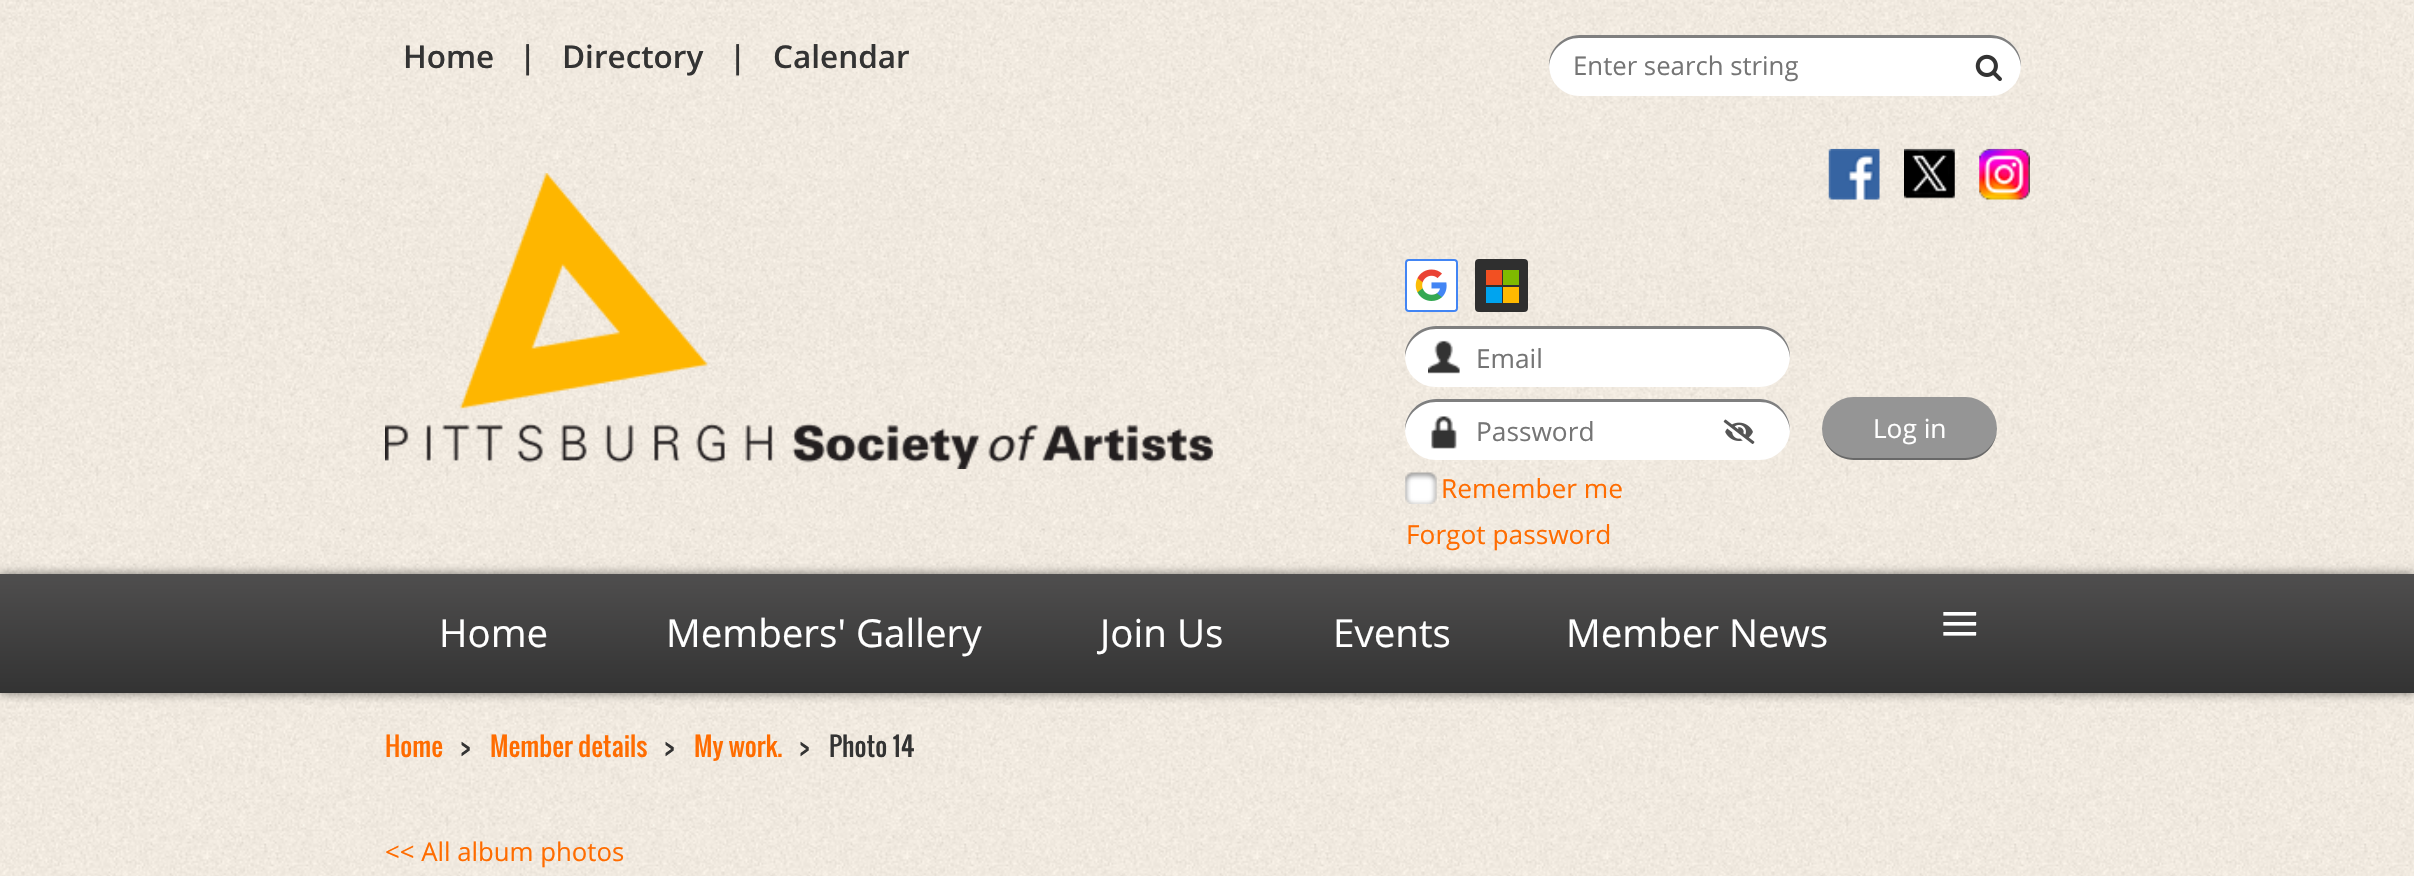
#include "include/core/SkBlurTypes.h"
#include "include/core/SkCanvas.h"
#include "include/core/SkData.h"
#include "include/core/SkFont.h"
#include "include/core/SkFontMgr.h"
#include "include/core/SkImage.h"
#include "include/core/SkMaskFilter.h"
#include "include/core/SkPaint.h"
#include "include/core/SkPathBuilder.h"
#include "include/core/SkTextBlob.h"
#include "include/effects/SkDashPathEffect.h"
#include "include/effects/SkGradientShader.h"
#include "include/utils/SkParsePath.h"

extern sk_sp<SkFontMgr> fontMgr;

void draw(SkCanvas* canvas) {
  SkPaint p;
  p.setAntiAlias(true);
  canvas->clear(SK_ColorWHITE);
  canvas->drawImageRect(SkImages::DeferredFromEncodedData(SkData::MakeFromFileName("images/1.png")), SkRect::MakeLTRB(0, 0, 2414, 876), SkSamplingOptions());
  p.setColor(SK_ColorWHITE);
  canvas->drawRoundRect(SkRect::MakeLTRB(1549, 35, 2021, 96), 30.5f, 30.5f, p);
  p.setColor(SkColorSetARGB(128, 0, 0, 0));
  canvas->drawPath(SkPathBuilder().moveTo(1579, 38).lineTo(1991, 38).cubicTo(2007, 38, 2020, 51, 2021, 67).cubicTo(2022, 50, 2008, 35, 1990, 35).lineTo(1580, 35).cubicTo(1562, 35, 1548, 50, 1549, 67).cubicTo(1550, 51, 1563, 38, 1579, 38).close().detach(), p);
  canvas->drawImageRect(SkImages::DeferredFromEncodedData(SkData::MakeFromFileName("images/2.png")), SkRect::MakeLTRB(1975, 54, 2002, 81), SkSamplingOptions());
  canvas->drawImageRect(SkImages::DeferredFromEncodedData(SkData::MakeFromFileName("images/3.png")), SkRect::MakeLTRB(385, 173, 1213, 469), SkSamplingOptions());
  canvas->drawImageRect(SkImages::DeferredFromEncodedData(SkData::MakeFromFileName("images/4.png")), SkRect::MakeLTRB(1828, 148, 1880, 200), SkSamplingOptions());
  canvas->drawImageRect(SkImages::DeferredFromEncodedData(SkData::MakeFromFileName("images/5.png")), SkRect::MakeLTRB(1904, 148, 1955, 199), SkSamplingOptions());
  canvas->drawImageRect(SkImages::DeferredFromEncodedData(SkData::MakeFromFileName("images/6.png")), SkRect::MakeLTRB(1979, 148, 2030, 200), SkSamplingOptions());
  p.setStyle(SkPaint::kStroke_Style);
  p.setStrokeWidth(2);
  p.setColor(SkColorSetRGB(66, 133, 244));
  canvas->drawRoundRect(SkRect::MakeLTRB(1406, 260, 1457, 311), 3, 3, p);
  canvas->drawImageRect(SkImages::DeferredFromEncodedData(SkData::MakeFromFileName("images/7.png")), SkRect::MakeLTRB(1407, 261, 1456, 310), SkSamplingOptions());
  p.setStyle(SkPaint::kFill_Style);
  p.setColor(SkColorSetRGB(47, 47, 47));
  canvas->drawRoundRect(SkRect::MakeLTRB(1476, 260, 1527, 311), 3, 3, p);
  p.setStyle(SkPaint::kStroke_Style);
  canvas->drawRoundRect(SkRect::MakeLTRB(1476, 260, 1527, 311), 3, 3, p);
  p.setStyle(SkPaint::kFill_Style);
  p.setColor(SkColorSetRGB(242, 80, 34));
  canvas->drawRect(SkRect::MakeLTRB(1486, 270, 1502, 285), p);
  p.setColor(SkColorSetRGB(0, 164, 239));
  canvas->drawRect(SkRect::MakeLTRB(1486, 287, 1502, 303), p);
  p.setColor(SkColorSetRGB(127, 186, 0));
  canvas->drawRect(SkRect::MakeLTRB(1503, 270, 1519, 285), p);
  p.setColor(SkColorSetRGB(255, 185, 0));
  canvas->drawRect(SkRect::MakeLTRB(1503, 287, 1519, 303), p);
  p.setColor(SK_ColorWHITE);
  canvas->drawRoundRect(SkRect::MakeLTRB(1405, 326, 1790, 387), 30.5f, 30.5f, p);
  canvas->drawImageRect(SkImages::DeferredFromEncodedData(SkData::MakeFromFileName("images/8.png")), SkRect::MakeLTRB(1428, 340, 1460, 374), SkSamplingOptions());
  p.setColor(SkColorSetARGB(128, 0, 0, 0));
  canvas->drawPath(SkPathBuilder().moveTo(1436, 329).lineTo(1760, 329).cubicTo(1776, 329, 1789, 342, 1790, 358).lineTo(1790, 356).cubicTo(1790, 340, 1776, 326, 1760, 326).lineTo(1436, 326).cubicTo(1419, 326, 1405, 340, 1405, 356).lineTo(1405, 358).cubicTo(1406, 342, 1420, 329, 1436, 329).close().detach(), p);
  p.setColor(SK_ColorWHITE);
  canvas->drawRoundRect(SkRect::MakeLTRB(1405, 399, 1790, 460), 30.5f, 30.5f, p);
  canvas->drawImageRect(SkImages::DeferredFromEncodedData(SkData::MakeFromFileName("images/9.png")), SkRect::MakeLTRB(1431, 416, 1457, 449), SkSamplingOptions());
  p.setColor(SkColorSetARGB(128, 0, 0, 0));
  canvas->drawPath(SkPathBuilder().moveTo(1436, 402).lineTo(1760, 402).cubicTo(1776, 402, 1789, 415, 1790, 431).lineTo(1790, 430).cubicTo(1790, 413, 1776, 399, 1760, 399).lineTo(1436, 399).cubicTo(1419, 399, 1405, 413, 1405, 430).lineTo(1405, 431).cubicTo(1406, 415, 1420, 402, 1436, 402).close().detach(), p);
  canvas->drawImageRect(SkImages::DeferredFromEncodedData(SkData::MakeFromFileName("images/10.png")), SkRect::MakeLTRB(1723, 419, 1755, 444), SkSamplingOptions());
  p.setColor(SkColorSetRGB(149, 149, 149));
  canvas->drawRoundRect(SkRect::MakeLTRB(1822, 397, 1997, 460), 31.5f, 31.5f, p);
  p.setColor(SkColorSetARGB(77, 0, 0, 0));
  canvas->drawPath(SkPathBuilder().moveTo(1822, 428).cubicTo(1822, 446, 1836, 460, 1854, 460).lineTo(1966, 460).cubicTo(1983, 460, 1997, 446, 1997, 428).cubicTo(1997, 444, 1983, 458, 1965, 458).lineTo(1853, 458).cubicTo(1836, 458, 1822, 444, 1822, 428).close().detach(), p);
  canvas->drawImageRect(SkImages::DeferredFromEncodedData(SkData::MakeFromFileName("images/11.png")), SkRect::MakeLTRB(1405, 472, 1437, 504), SkSamplingOptions());
  p.setColor(SkColorSetARGB(128, 0, 0, 0));
  p.setMaskFilter(SkMaskFilter::MakeBlur(kNormal_SkBlurStyle, 5));
  canvas->drawRect(SkRect::MakeLTRB(0, 574, 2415, 693), p);
  p.setMaskFilter(nullptr);
  {
    const SkColor colors[] = {SkColorSetRGB(79, 78, 78), SkColorSetRGB(51, 51, 51)};
    const float stops[] = {0, 1};
    const SkPoint ends[] = {{1208, 574}, {1208, 693}};
    p.setShader(SkGradientShader::MakeLinear(ends, colors, stops, 2, SkTileMode::kClamp));
    p.setAlpha(255);
  }
  canvas->drawRect(SkRect::MakeLTRB(0, 574, 2414, 693), p);
  SkFont font1(fontMgr->matchFamilyStyle("Open Sans", SkFontStyle(600, SkFontStyle::kNormal_Width, SkFontStyle::kUpright_Slant)), 31.5f);
  font1.setSubpixel(true);
  p.setShader(nullptr);
  p.setColor(SkColorSetRGB(51, 51, 51));
  canvas->drawString("Home", 403, 68, font1, p);
  canvas->drawString("|", 519, 68, font1, p);
  canvas->drawString("Directory", 562, 68, font1, p);
  canvas->drawString("|", 729, 68, font1, p);
  canvas->drawString("Calendar", 773, 68, font1, p);
  SkFont font2(fontMgr->matchFamilyStyle("Open Sans", SkFontStyle::Normal()), 25.75f);
  font2.setSubpixel(true);
  p.setColor(SkColorSetRGB(117, 117, 117));
  canvas->drawString("Enter search string", 1573, 75, font2, p);
  SkFont font3(fontMgr->matchFamilyStyle("Open Sans", SkFontStyle::Normal()), 26.25f);
  font3.setSubpixel(true);
  canvas->drawString("Email", 1476, 368, font3, p);
  canvas->drawString("Password", 1476, 441, font3, p);
  p.setColor(SK_ColorWHITE);
  canvas->drawString("Log in", 1873, 438, font3, p);
  p.setColor(SkColorSetRGB(255, 108, 0));
  canvas->drawString("Remember me", 1441, 498, font3, p);
  canvas->drawString("Forgot password", 1406, 544, font3, p);
  SkFont font4(fontMgr->matchFamilyStyle("Open Sans", SkFontStyle::Normal()), 38.5f);
  font4.setSubpixel(true);
  p.setColor(SK_ColorWHITE);
  canvas->drawString("Home", 439, 647, font4, p);
  canvas->drawString("Members' Gallery", 666, 647, font4, p);
  canvas->drawString("Join Us", 1100, 647, font4, p);
  canvas->drawString("Events", 1333, 647, font4, p);
  canvas->drawString("Member News", 1566, 647, font4, p);
  SkFont font5(fontMgr->matchFamilyStyle("Liberation Serif", SkFontStyle::Normal()), 70);
  font5.setSubpixel(true);
  canvas->drawString("≡", 1940, 647, font5, p);
  SkFont font6(fontMgr->matchFamilyStyle("Oswald", SkFontStyle::Normal()), 25.75f);
  font6.setSubpixel(true);
  p.setColor(SkColorSetRGB(255, 108, 0));
  canvas->drawString("Home", 385, 757, font6, p);
  p.setColor(SkColorSetRGB(51, 51, 51));
  canvas->drawString(">", 460, 757, font6, p);
  p.setColor(SkColorSetRGB(255, 108, 0));
  canvas->drawString("Member details", 490, 757, font6, p);
  p.setColor(SkColorSetRGB(51, 51, 51));
  canvas->drawString(">", 664, 757, font6, p);
  p.setColor(SkColorSetRGB(255, 108, 0));
  canvas->drawString("My work.", 694, 757, font6, p);
  p.setColor(SkColorSetRGB(51, 51, 51));
  canvas->drawString(">", 799, 757, font6, p);
  canvas->drawString("Photo 14", 829, 757, font6, p);
  p.setColor(SkColorSetRGB(255, 108, 0));
  canvas->drawString("<< All album photos", 385, 861, font2, p);
}
